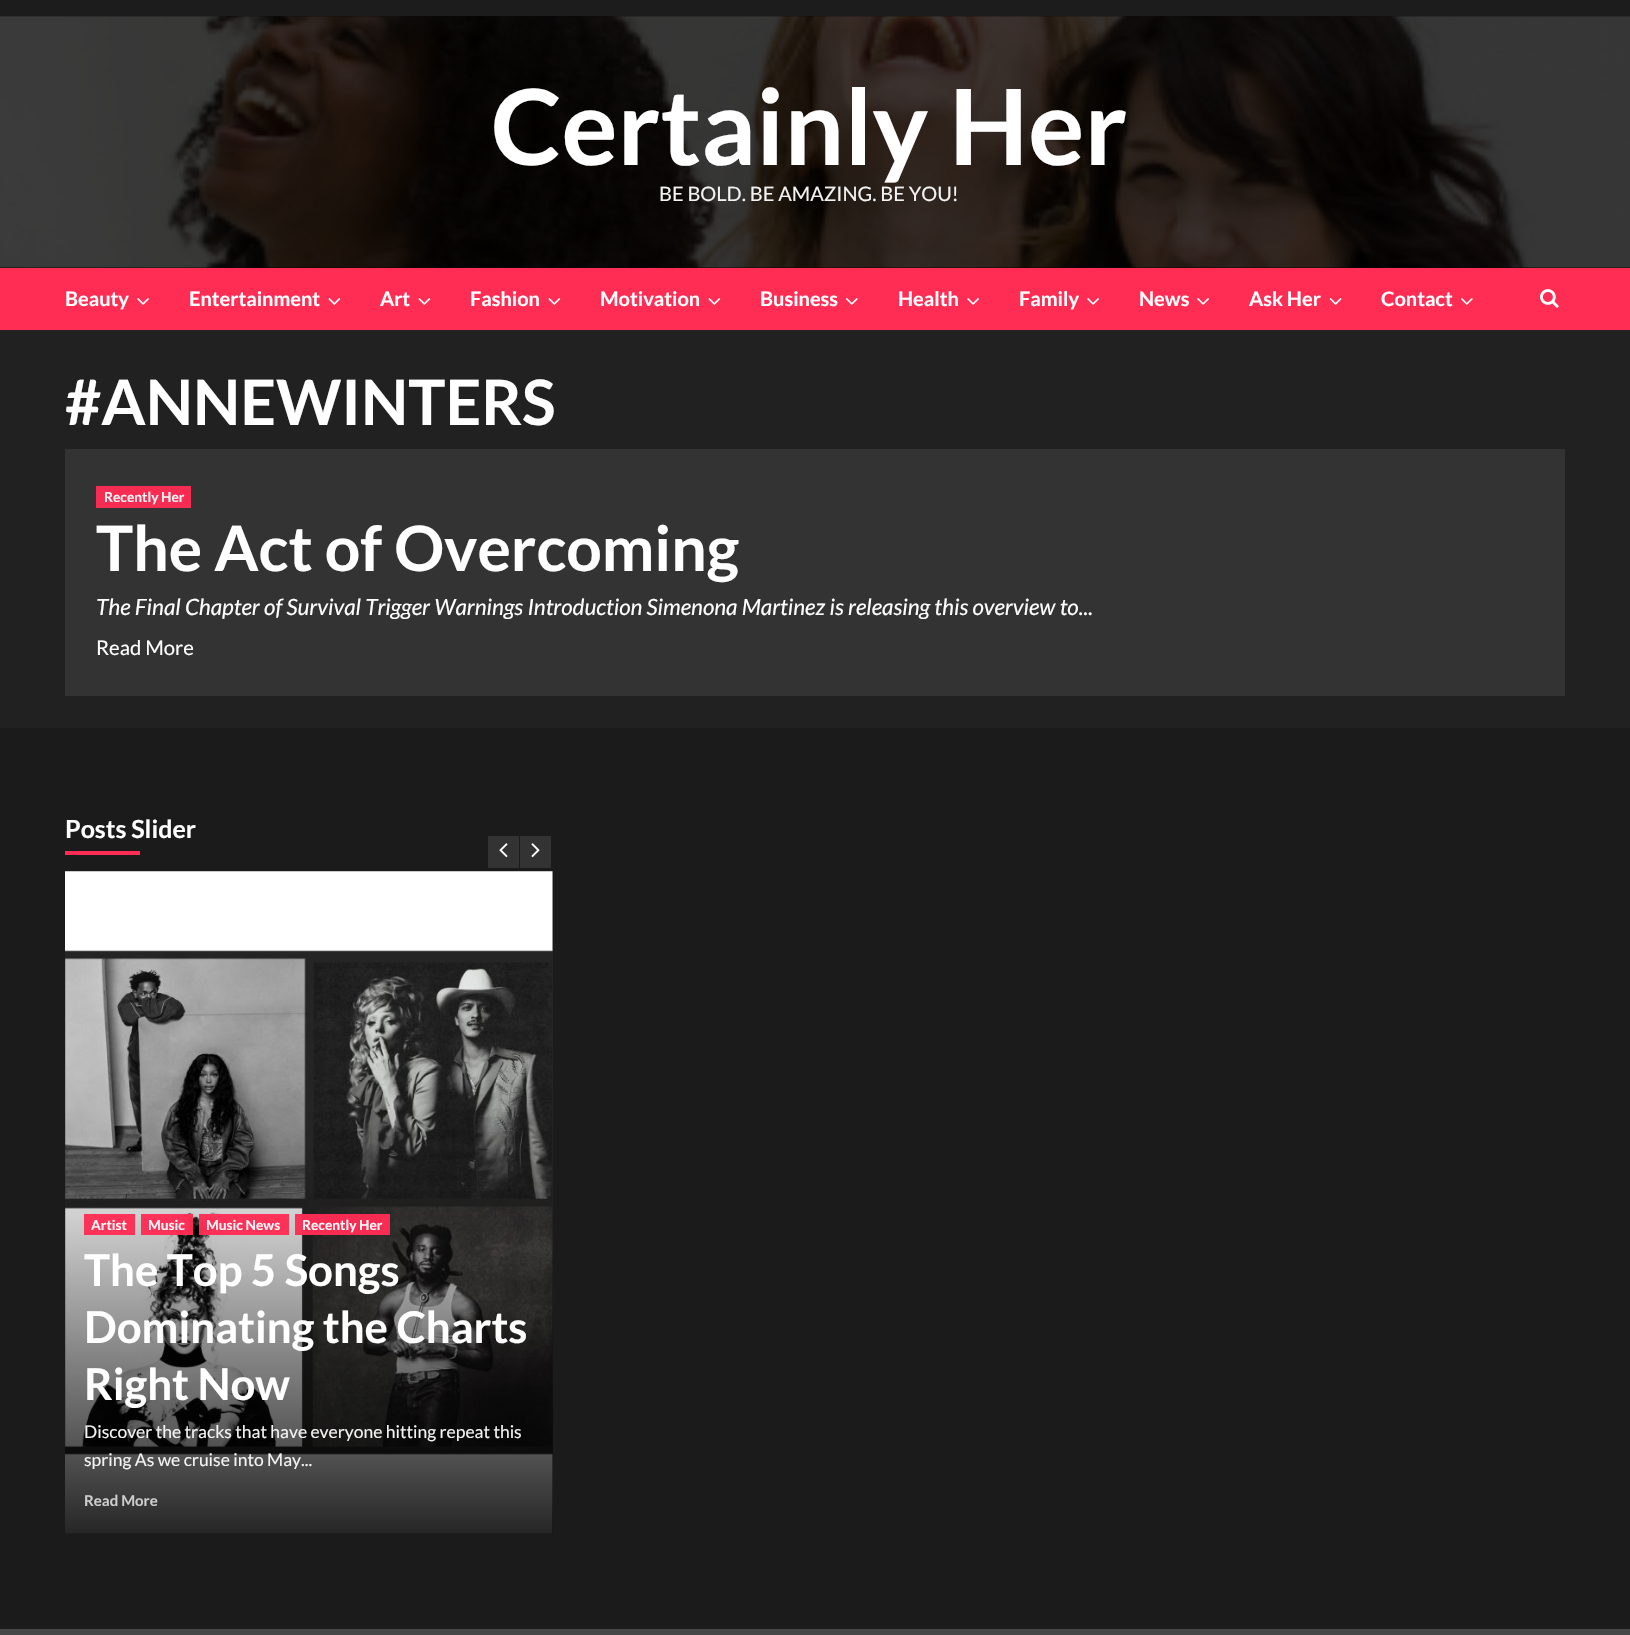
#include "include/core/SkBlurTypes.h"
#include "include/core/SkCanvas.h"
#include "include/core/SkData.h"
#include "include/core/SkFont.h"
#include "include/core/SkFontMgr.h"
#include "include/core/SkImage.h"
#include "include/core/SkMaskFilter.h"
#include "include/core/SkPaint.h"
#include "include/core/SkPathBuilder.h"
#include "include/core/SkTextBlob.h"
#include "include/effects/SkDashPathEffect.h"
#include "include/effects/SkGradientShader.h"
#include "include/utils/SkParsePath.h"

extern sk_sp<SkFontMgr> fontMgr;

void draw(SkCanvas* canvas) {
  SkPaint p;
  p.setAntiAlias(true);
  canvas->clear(SkColorSetRGB(33, 33, 33));
  p.setColor(SkColorSetRGB(8, 8, 8));
  canvas->drawRect(SkRect::MakeLTRB(0, 16, 1630, 268), p);
  p.setColor(SkColorSetRGB(28, 28, 28));
  canvas->drawRect(SkRect::MakeLTRB(0, 0, 1630, 16), p);
  canvas->drawImageRect(SkImages::DeferredFromEncodedData(SkData::MakeFromFileName("images/1.png")), SkRect::MakeLTRB(0, 16, 1630, 268), SkSamplingOptions());
  p.setColor(SkColorSetRGB(255, 44, 84));
  canvas->drawRect(SkRect::MakeLTRB(0, 268, 1630, 330), p);
  canvas->drawImageRect(SkImages::DeferredFromEncodedData(SkData::MakeFromFileName("images/2.png")), SkRect::MakeLTRB(137, 298, 149, 305), SkSamplingOptions());
  canvas->drawImageRect(SkImages::DeferredFromEncodedData(SkData::MakeFromFileName("images/3.png")), SkRect::MakeLTRB(328, 298, 341, 305), SkSamplingOptions());
  canvas->drawImageRect(SkImages::DeferredFromEncodedData(SkData::MakeFromFileName("images/3.png")), SkRect::MakeLTRB(418, 298, 431, 305), SkSamplingOptions());
  canvas->drawImageRect(SkImages::DeferredFromEncodedData(SkData::MakeFromFileName("images/3.png")), SkRect::MakeLTRB(548, 298, 561, 305), SkSamplingOptions());
  canvas->drawImageRect(SkImages::DeferredFromEncodedData(SkData::MakeFromFileName("images/3.png")), SkRect::MakeLTRB(708, 298, 721, 305), SkSamplingOptions());
  canvas->drawImageRect(SkImages::DeferredFromEncodedData(SkData::MakeFromFileName("images/4.png")), SkRect::MakeLTRB(846, 298, 858, 305), SkSamplingOptions());
  canvas->drawImageRect(SkImages::DeferredFromEncodedData(SkData::MakeFromFileName("images/2.png")), SkRect::MakeLTRB(967, 298, 979, 305), SkSamplingOptions());
  canvas->drawImageRect(SkImages::DeferredFromEncodedData(SkData::MakeFromFileName("images/2.png")), SkRect::MakeLTRB(1087, 298, 1099, 305), SkSamplingOptions());
  canvas->drawImageRect(SkImages::DeferredFromEncodedData(SkData::MakeFromFileName("images/2.png")), SkRect::MakeLTRB(1197, 298, 1209, 305), SkSamplingOptions());
  canvas->drawImageRect(SkImages::DeferredFromEncodedData(SkData::MakeFromFileName("images/5.png")), SkRect::MakeLTRB(1329, 298, 1342, 305), SkSamplingOptions());
  canvas->drawImageRect(SkImages::DeferredFromEncodedData(SkData::MakeFromFileName("images/4.png")), SkRect::MakeLTRB(1461, 298, 1473, 305), SkSamplingOptions());
  canvas->drawImageRect(SkImages::DeferredFromEncodedData(SkData::MakeFromFileName("images/6.png")), SkRect::MakeLTRB(1540, 289, 1559, 308), SkSamplingOptions());
  p.setColor(SkColorSetRGB(51, 51, 51));
  canvas->drawRect(SkRect::MakeLTRB(65, 449, 1565, 696), p);
  p.setColor(SkColorSetRGB(247, 44, 83));
  canvas->drawRect(SkRect::MakeLTRB(96, 486, 191, 508), p);
  p.setColor(SkColorSetRGB(27, 27, 28));
  canvas->drawRect(SkRect::MakeLTRB(0, 728, 1630, 1629), p);
  p.setColor(SkColorSetRGB(255, 44, 84));
  canvas->drawRect(SkRect::MakeLTRB(65, 851, 140, 855), p);
  p.setColor(SkColorSetRGB(51, 51, 51));
  canvas->drawRect(SkRect::MakeLTRB(488, 836, 519, 868), p);
  canvas->drawImageRect(SkImages::DeferredFromEncodedData(SkData::MakeFromFileName("images/7.png")), SkRect::MakeLTRB(499, 843, 508, 858), SkSamplingOptions());
  canvas->drawRect(SkRect::MakeLTRB(520, 836, 551, 868), p);
  canvas->drawImageRect(SkImages::DeferredFromEncodedData(SkData::MakeFromFileName("images/8.png")), SkRect::MakeLTRB(531, 843, 540, 858), SkSamplingOptions());
  p.setColor(SkColorSetRGB(38, 38, 39));
  canvas->drawRect(SkRect::MakeLTRB(65, 871, 553, 1534), p);
  canvas->drawImageRect(SkImages::DeferredFromEncodedData(SkData::MakeFromFileName("images/9.png")), SkRect::MakeLTRB(65, 871, 553, 1534), SkSamplingOptions());
  {
    const SkColor colors[] = {SkColorSetARGB(0, 0, 0, 0), SkColorSetARGB(217, 0, 0, 0)};
    const float stops[] = {0.4f, 1};
    const SkPoint ends[] = {{309, 871}, {309, 1534}};
    p.setShader(SkGradientShader::MakeLinear(ends, colors, stops, 2, SkTileMode::kClamp));
    p.setAlpha(255);
  }
  canvas->drawRect(SkRect::MakeLTRB(65, 1146, 553, 1534), p);
  p.setShader(nullptr);
  p.setColor(SkColorSetARGB(245, 255, 44, 84));
  canvas->drawRect(SkRect::MakeLTRB(84, 1214, 135, 1235), p);
  canvas->drawRect(SkRect::MakeLTRB(141, 1214, 193, 1235), p);
  canvas->drawRect(SkRect::MakeLTRB(199, 1214, 289, 1235), p);
  canvas->drawRect(SkRect::MakeLTRB(295, 1214, 390, 1235), p);
  p.setColor(SkColorSetRGB(70, 70, 71));
  canvas->drawRect(SkRect::MakeLTRB(0, 1629, 1630, 1635), p);
  SkFont font1(fontMgr->matchFamilyStyle("Lato", SkFontStyle::Bold()), 105);
  font1.setSubpixel(true);
  p.setColor(SK_ColorWHITE);
  canvas->drawString("Certainly Her", 491, 165, font1, p);
  SkFont font2(fontMgr->matchFamilyStyle("Lato", SkFontStyle::Normal()), 20);
  font2.setSubpixel(true);
  p.setColor(SkColorSetRGB(243, 243, 243));
  canvas->drawString("BE BOLD. BE AMAZING. BE YOU!", 659, 201, font2, p);
  SkFont font3(fontMgr->matchFamilyStyle("Lato", SkFontStyle::Bold()), 20);
  font3.setSubpixel(true);
  p.setColor(SK_ColorWHITE);
  canvas->drawString("Beauty", 65, 306, font3, p);
  canvas->drawString("Entertainment", 189, 306, font3, p);
  canvas->drawString("Art", 380, 306, font3, p);
  canvas->drawString("Fashion", 470, 306, font3, p);
  canvas->drawString("Motivation", 600, 306, font3, p);
  canvas->drawString("Business", 760, 306, font3, p);
  canvas->drawString("Health", 898, 306, font3, p);
  canvas->drawString("Family", 1019, 306, font3, p);
  canvas->drawString("News", 1139, 306, font3, p);
  canvas->drawString("Ask Her", 1249, 306, font3, p);
  canvas->drawString("Contact", 1381, 306, font3, p);
  SkFont font4(fontMgr->matchFamilyStyle("Lato", SkFontStyle::Bold()), 62.5f);
  font4.setSubpixel(true);
  canvas->drawString("#ANNEWINTERS", 65, 425, font4, p);
  SkFont font5(fontMgr->matchFamilyStyle("Lato", SkFontStyle::Bold()), 13.75f);
  font5.setSubpixel(true);
  p.setColor(SkColorSetRGB(243, 243, 243));
  canvas->drawString("Recently Her", 104, 502, font5, p);
  p.setColor(SK_ColorWHITE);
  canvas->drawString("The Act of Overcoming", 96, 571, font4, p);
  SkFont font6(fontMgr->matchFamilyStyle("Lato", SkFontStyle::Italic()), 22.5f);
  font6.setSubpixel(true);
  canvas->drawString("The Final Chapter of Survival Trigger Warnings Introduction Simenona Martinez is releasing this overview to...", 96, 615, font6, p);
  SkFont font7(fontMgr->matchFamilyStyle("Lato", SkFontStyle::Normal()), 20.25f);
  font7.setSubpixel(true);
  canvas->drawString("Read More", 96, 655, font7, p);
  SkFont font8(fontMgr->matchFamilyStyle("Lato", SkFontStyle::Bold()), 25);
  font8.setSubpixel(true);
  canvas->drawString("Posts Slider", 65, 838, font8, p);
  p.setColor(SkColorSetRGB(255, 247, 248));
  canvas->drawString("Artist", 91, 1230, font5, p);
  canvas->drawString("Music", 148, 1230, font5, p);
  canvas->drawString("Music News", 206, 1230, font5, p);
  canvas->drawString("Recently Her", 302, 1230, font5, p);
  SkFont font9(fontMgr->matchFamilyStyle("Lato", SkFontStyle::Bold()), 43.75f);
  font9.setSubpixel(true);
  p.setColor(SK_ColorWHITE);
  canvas->drawString("The Top 5 Songs", 84, 1286, font9, p);
  canvas->drawString("Dominating the Charts", 84, 1343, font9, p);
  canvas->drawString("Right Now", 84, 1400, font9, p);
  SkFont font10(fontMgr->matchFamilyStyle("Lato", SkFontStyle::Normal()), 17.5f);
  font10.setSubpixel(true);
  p.setColor(SkColorSetRGB(243, 243, 243));
  canvas->drawString("Discover the tracks that have everyone hitting repeat this", 84, 1438, font10, p);
  canvas->drawString("spring As we cruise into May...", 84, 1466, font10, p);
  SkFont font11(fontMgr->matchFamilyStyle("Lato", SkFontStyle::Bold()), 15);
  font11.setSubpixel(true);
  p.setColor(SkColorSetRGB(205, 205, 205));
  canvas->drawString("Read More", 84, 1506, font11, p);
}
